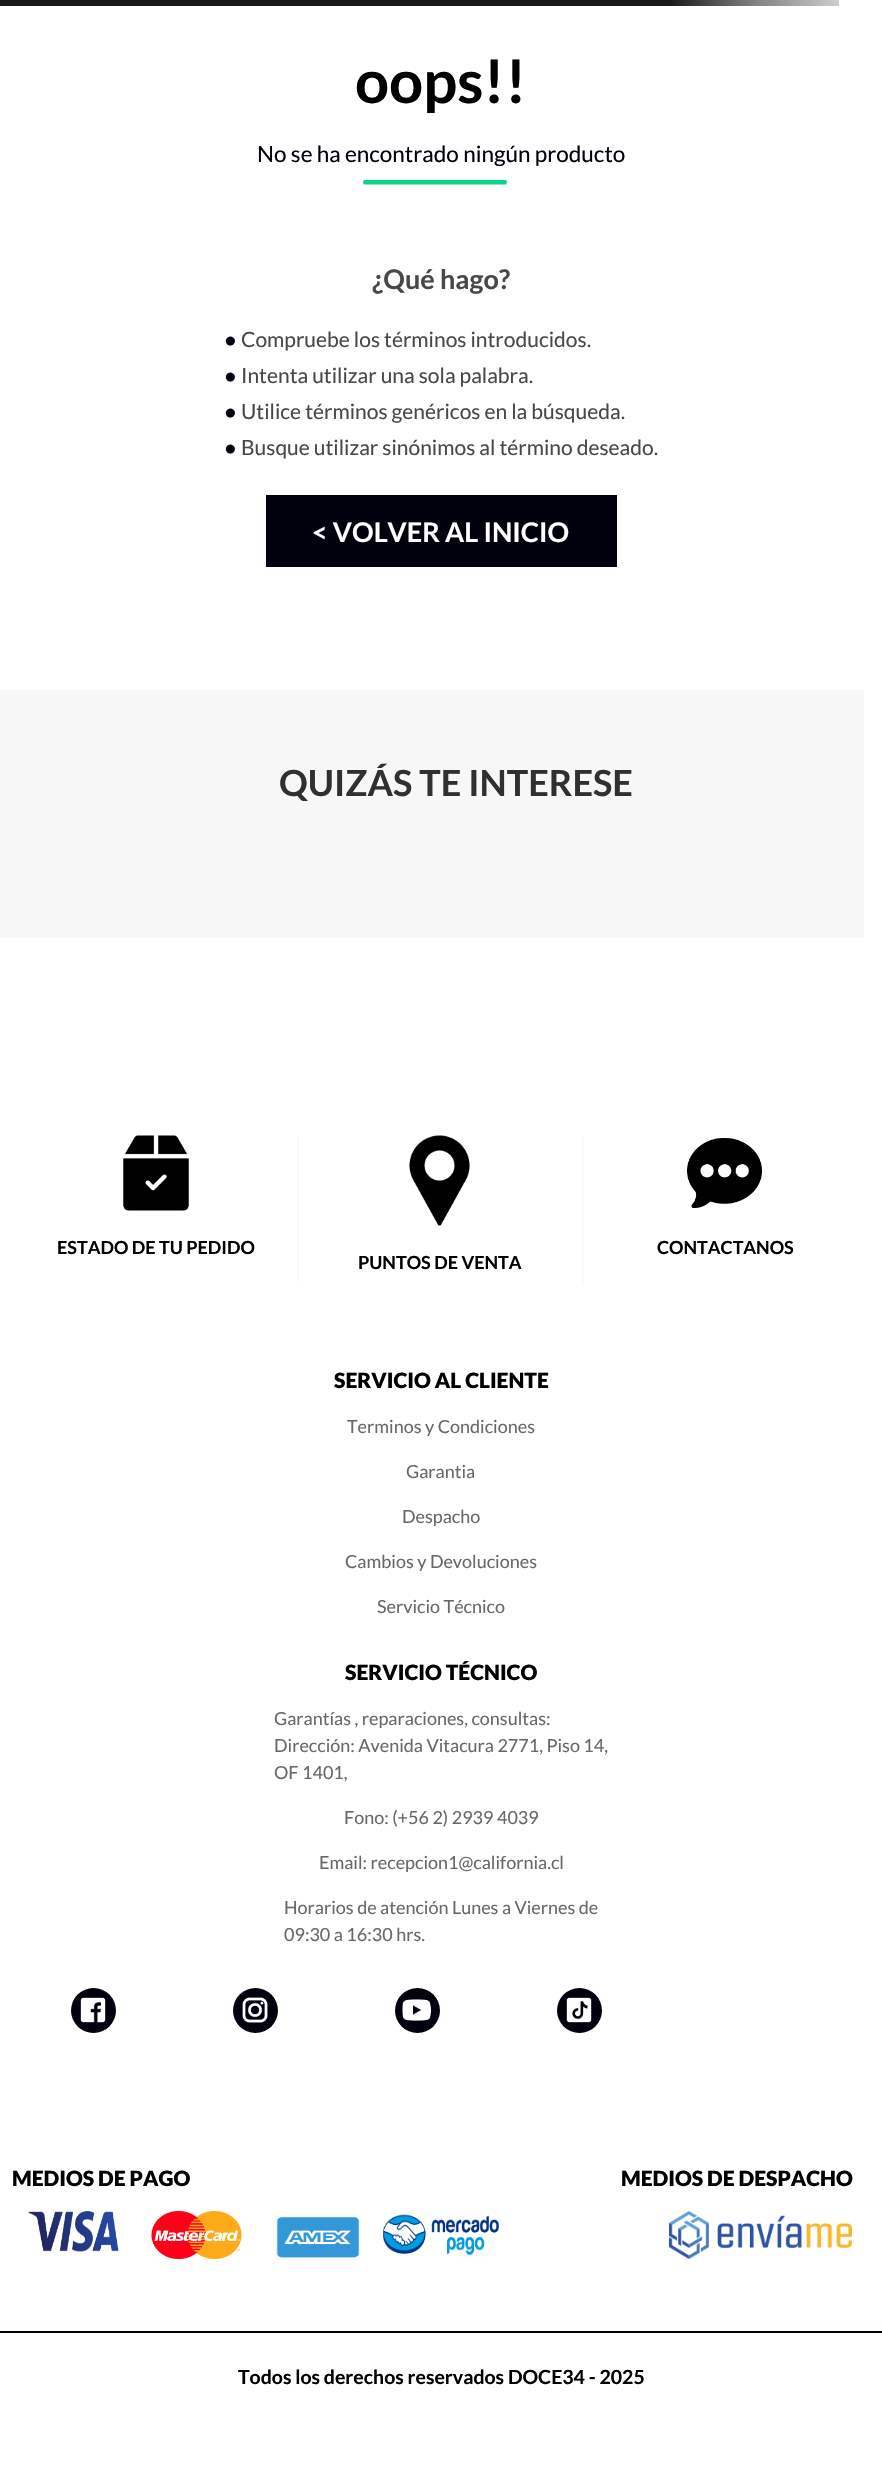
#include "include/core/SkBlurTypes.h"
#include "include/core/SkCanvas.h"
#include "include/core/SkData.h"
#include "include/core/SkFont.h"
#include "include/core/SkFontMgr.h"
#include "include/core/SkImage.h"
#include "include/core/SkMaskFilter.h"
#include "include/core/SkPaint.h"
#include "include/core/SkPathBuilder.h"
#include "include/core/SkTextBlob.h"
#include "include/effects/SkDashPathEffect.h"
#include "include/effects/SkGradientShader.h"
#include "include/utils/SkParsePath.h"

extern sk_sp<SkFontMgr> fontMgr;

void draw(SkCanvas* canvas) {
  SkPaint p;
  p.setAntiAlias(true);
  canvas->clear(SK_ColorWHITE);
  {
    const SkColor colors[] = {SkColorSetRGB(26, 26, 26), SkColorSetRGB(128, 128, 128), SkColorSetRGB(204, 204, 204)};
    const float stops[] = {0.8f, 0.9f, 1};
    const SkPoint ends[] = {{0, 3}, {838, 3}};
    p.setShader(SkGradientShader::MakeLinear(ends, colors, stops, 3, SkTileMode::kClamp));
    p.setAlpha(255);
  }
  canvas->drawRect(SkRect::MakeLTRB(0, 0, 839, 6), p);
  canvas->drawImageRect(SkImages::DeferredFromEncodedData(SkData::MakeFromFileName("images/1.png")), SkRect::MakeLTRB(363, 180, 507, 185), SkSamplingOptions());
  p.setShader(nullptr);
  p.setColor(SkColorSetRGB(0, 1, 13));
  canvas->drawRect(SkRect::MakeLTRB(266, 495, 617, 567), p);
  p.setColor(SkColorSetRGB(247, 247, 247));
  canvas->drawRect(SkRect::MakeLTRB(0, 690, 864, 938), p);
  p.setColor(SkColorSetRGB(250, 250, 250));
  canvas->drawRect(SkRect::MakeLTRB(297, 1136, 299, 1283), p);
  canvas->drawImageRect(SkImages::DeferredFromEncodedData(SkData::MakeFromFileName("images/2.png")), SkRect::MakeLTRB(123, 1135, 189, 1211), SkSamplingOptions());
  canvas->drawImageRect(SkImages::DeferredFromEncodedData(SkData::MakeFromFileName("images/3.png")), SkRect::MakeLTRB(687, 1138, 762, 1208), SkSamplingOptions());
  canvas->drawRect(SkRect::MakeLTRB(582, 1136, 584, 1283), p);
  canvas->drawImageRect(SkImages::DeferredFromEncodedData(SkData::MakeFromFileName("images/4.png")), SkRect::MakeLTRB(409, 1135, 470, 1226), SkSamplingOptions());
  p.setColor(SkColorSetRGB(0, 1, 13));
  canvas->drawCircle(93.5f, 2010.5f, 22.5f, p);
  canvas->drawImageRect(SkImages::DeferredFromEncodedData(SkData::MakeFromFileName("images/5.png")), SkRect::MakeLTRB(80, 1997, 106, 2023), SkSamplingOptions());
  canvas->drawCircle(255.5f, 2010.5f, 22.5f, p);
  canvas->drawImageRect(SkImages::DeferredFromEncodedData(SkData::MakeFromFileName("images/6.png")), SkRect::MakeLTRB(242, 1997, 268, 2023), SkSamplingOptions());
  canvas->drawCircle(417.5f, 2010.5f, 22.5f, p);
  canvas->drawImageRect(SkImages::DeferredFromEncodedData(SkData::MakeFromFileName("images/7.png")), SkRect::MakeLTRB(402, 1999, 432, 2021), SkSamplingOptions());
  canvas->drawCircle(579.5f, 2010.5f, 22.5f, p);
  canvas->drawImageRect(SkImages::DeferredFromEncodedData(SkData::MakeFromFileName("images/8.png")), SkRect::MakeLTRB(566, 1997, 592, 2023), SkSamplingOptions());
  canvas->drawImageRect(SkImages::DeferredFromEncodedData(SkData::MakeFromFileName("images/9.png")), SkRect::MakeLTRB(28, 2211, 119, 2252), SkSamplingOptions());
  canvas->drawImageRect(SkImages::DeferredFromEncodedData(SkData::MakeFromFileName("images/10.png")), SkRect::MakeLTRB(151, 2211, 242, 2259), SkSamplingOptions());
  canvas->drawImageRect(SkImages::DeferredFromEncodedData(SkData::MakeFromFileName("images/11.png")), SkRect::MakeLTRB(276, 2217, 360, 2258), SkSamplingOptions());
  canvas->drawImageRect(SkImages::DeferredFromEncodedData(SkData::MakeFromFileName("images/12.png")), SkRect::MakeLTRB(383, 2214, 499, 2256), SkSamplingOptions());
  canvas->drawImageRect(SkImages::DeferredFromEncodedData(SkData::MakeFromFileName("images/13.png")), SkRect::MakeLTRB(669, 2211, 852, 2259), SkSamplingOptions());
  canvas->drawRect(SkRect::MakeLTRB(0, 2331, 882, 2333), p);
  SkFont font1(fontMgr->matchFamilyStyle("Lato", SkFontStyle::Bold()), 60);
  font1.setSubpixel(true);
  p.setColor(SK_ColorBLACK);
  canvas->drawString("oops!!", 355, 103, font1, p);
  SkFont font2(fontMgr->matchFamilyStyle("Lato", SkFontStyle::Normal()), 22.5f);
  font2.setSubpixel(true);
  p.setColor(SkColorSetRGB(0, 1, 13));
  canvas->drawString("No se ha encontrado ningún producto", 257, 162, font2, p);
  SkFont font3(fontMgr->matchFamilyStyle("Lato", SkFontStyle::Bold()), 27);
  font3.setSubpixel(true);
  p.setColor(SkColorSetRGB(72, 72, 72));
  canvas->drawString("¿Qué hago?", 372, 289, font3, p);
  SkFont font4(fontMgr->matchFamilyStyle("Liberation Serif", SkFontStyle::Bold()), 21);
  font4.setSubpixel(true);
  p.setColor(SkColorSetRGB(0, 1, 13));
  canvas->drawString("●", 224, 347, font4, p);
  SkFont font5(fontMgr->matchFamilyStyle("Lato", SkFontStyle::Normal()), 21);
  font5.setSubpixel(true);
  p.setColor(SkColorSetRGB(72, 72, 72));
  canvas->drawString("Compruebe los términos introducidos.", 241, 347, font5, p);
  p.setColor(SkColorSetRGB(0, 1, 13));
  canvas->drawString("●", 224, 383, font4, p);
  p.setColor(SkColorSetRGB(72, 72, 72));
  canvas->drawString("Intenta utilizar una sola palabra.", 241, 383, font5, p);
  p.setColor(SkColorSetRGB(0, 1, 13));
  canvas->drawString("●", 224, 419, font4, p);
  p.setColor(SkColorSetRGB(72, 72, 72));
  canvas->drawString("Utilice términos genéricos en la búsqueda.", 241, 419, font5, p);
  p.setColor(SkColorSetRGB(0, 1, 13));
  canvas->drawString("●", 224, 455, font4, p);
  p.setColor(SkColorSetRGB(72, 72, 72));
  canvas->drawString("Busque utilizar sinónimos al término deseado.", 241, 455, font5, p);
  p.setColor(SK_ColorWHITE);
  canvas->drawString("< VOLVER AL INICIO", 312, 542, font3, p);
  SkFont font6(fontMgr->matchFamilyStyle("Lato", SkFontStyle::Bold()), 36);
  font6.setSubpixel(true);
  p.setColor(SkColorSetRGB(48, 48, 48));
  canvas->drawString("QUIZÁS TE INTERESE", 279, 796, font6, p);
  SkFont font7(fontMgr->matchFamilyStyle("Lato", SkFontStyle::Bold()), 18);
  font7.setSubpixel(true);
  p.setColor(SK_ColorBLACK);
  canvas->drawString("ESTADO DE TU PEDIDO", 57, 1254, font7, p);
  canvas->drawString("CONTACTANOS", 657, 1254, font7, p);
  canvas->drawString("PUNTOS DE VENTA", 358, 1269, font7, p);
  SkFont font8(fontMgr->matchFamilyStyle("Lato", SkFontStyle(900, SkFontStyle::kNormal_Width, SkFontStyle::kUpright_Slant)), 21);
  font8.setSubpixel(true);
  canvas->drawString("SERVICIO AL CLIENTE", 334, 1388, font8, p);
  SkFont font9(fontMgr->matchFamilyStyle("Lato", SkFontStyle::Normal()), 18);
  font9.setSubpixel(true);
  p.setColor(SkColorSetRGB(104, 104, 104));
  canvas->drawString("Terminos y Condiciones", 347, 1433, font9, p);
  canvas->drawString("Garantia", 406, 1478, font9, p);
  canvas->drawString("Despacho", 402, 1523, font9, p);
  canvas->drawString("Cambios y Devoluciones", 345, 1568, font9, p);
  canvas->drawString("Servicio Técnico", 377, 1613, font9, p);
  p.setColor(SK_ColorBLACK);
  canvas->drawString("SERVICIO TÉCNICO", 345, 1680, font8, p);
  p.setColor(SkColorSetRGB(104, 104, 104));
  canvas->drawString("Garantías , reparaciones, consultas:", 274, 1725, font9, p);
  canvas->drawString("Dirección: Avenida Vitacura 2771, Piso 14,", 274, 1752, font9, p);
  canvas->drawString("OF 1401,", 274, 1779, font9, p);
  canvas->drawString("Fono: (+56 2) 2939 4039", 344, 1824, font9, p);
  canvas->drawString("Email: recepcion1@california.cl", 319, 1869, font9, p);
  canvas->drawString("Horarios de atención Lunes a Viernes de", 284, 1914, font9, p);
  canvas->drawString("09:30 a 16:30 hrs.", 284, 1941, font9, p);
  p.setColor(SK_ColorBLACK);
  canvas->drawString("MEDIOS DE PAGO", 12, 2186, font8, p);
  canvas->drawString("MEDIOS DE DESPACHO", 621, 2186, font8, p);
  SkFont font10(fontMgr->matchFamilyStyle("Lato", SkFontStyle::Bold()), 19.5f);
  font10.setSubpixel(true);
  canvas->drawString("Todos los derechos reservados DOCE34 - 2025", 238, 2384, font10, p);
}
